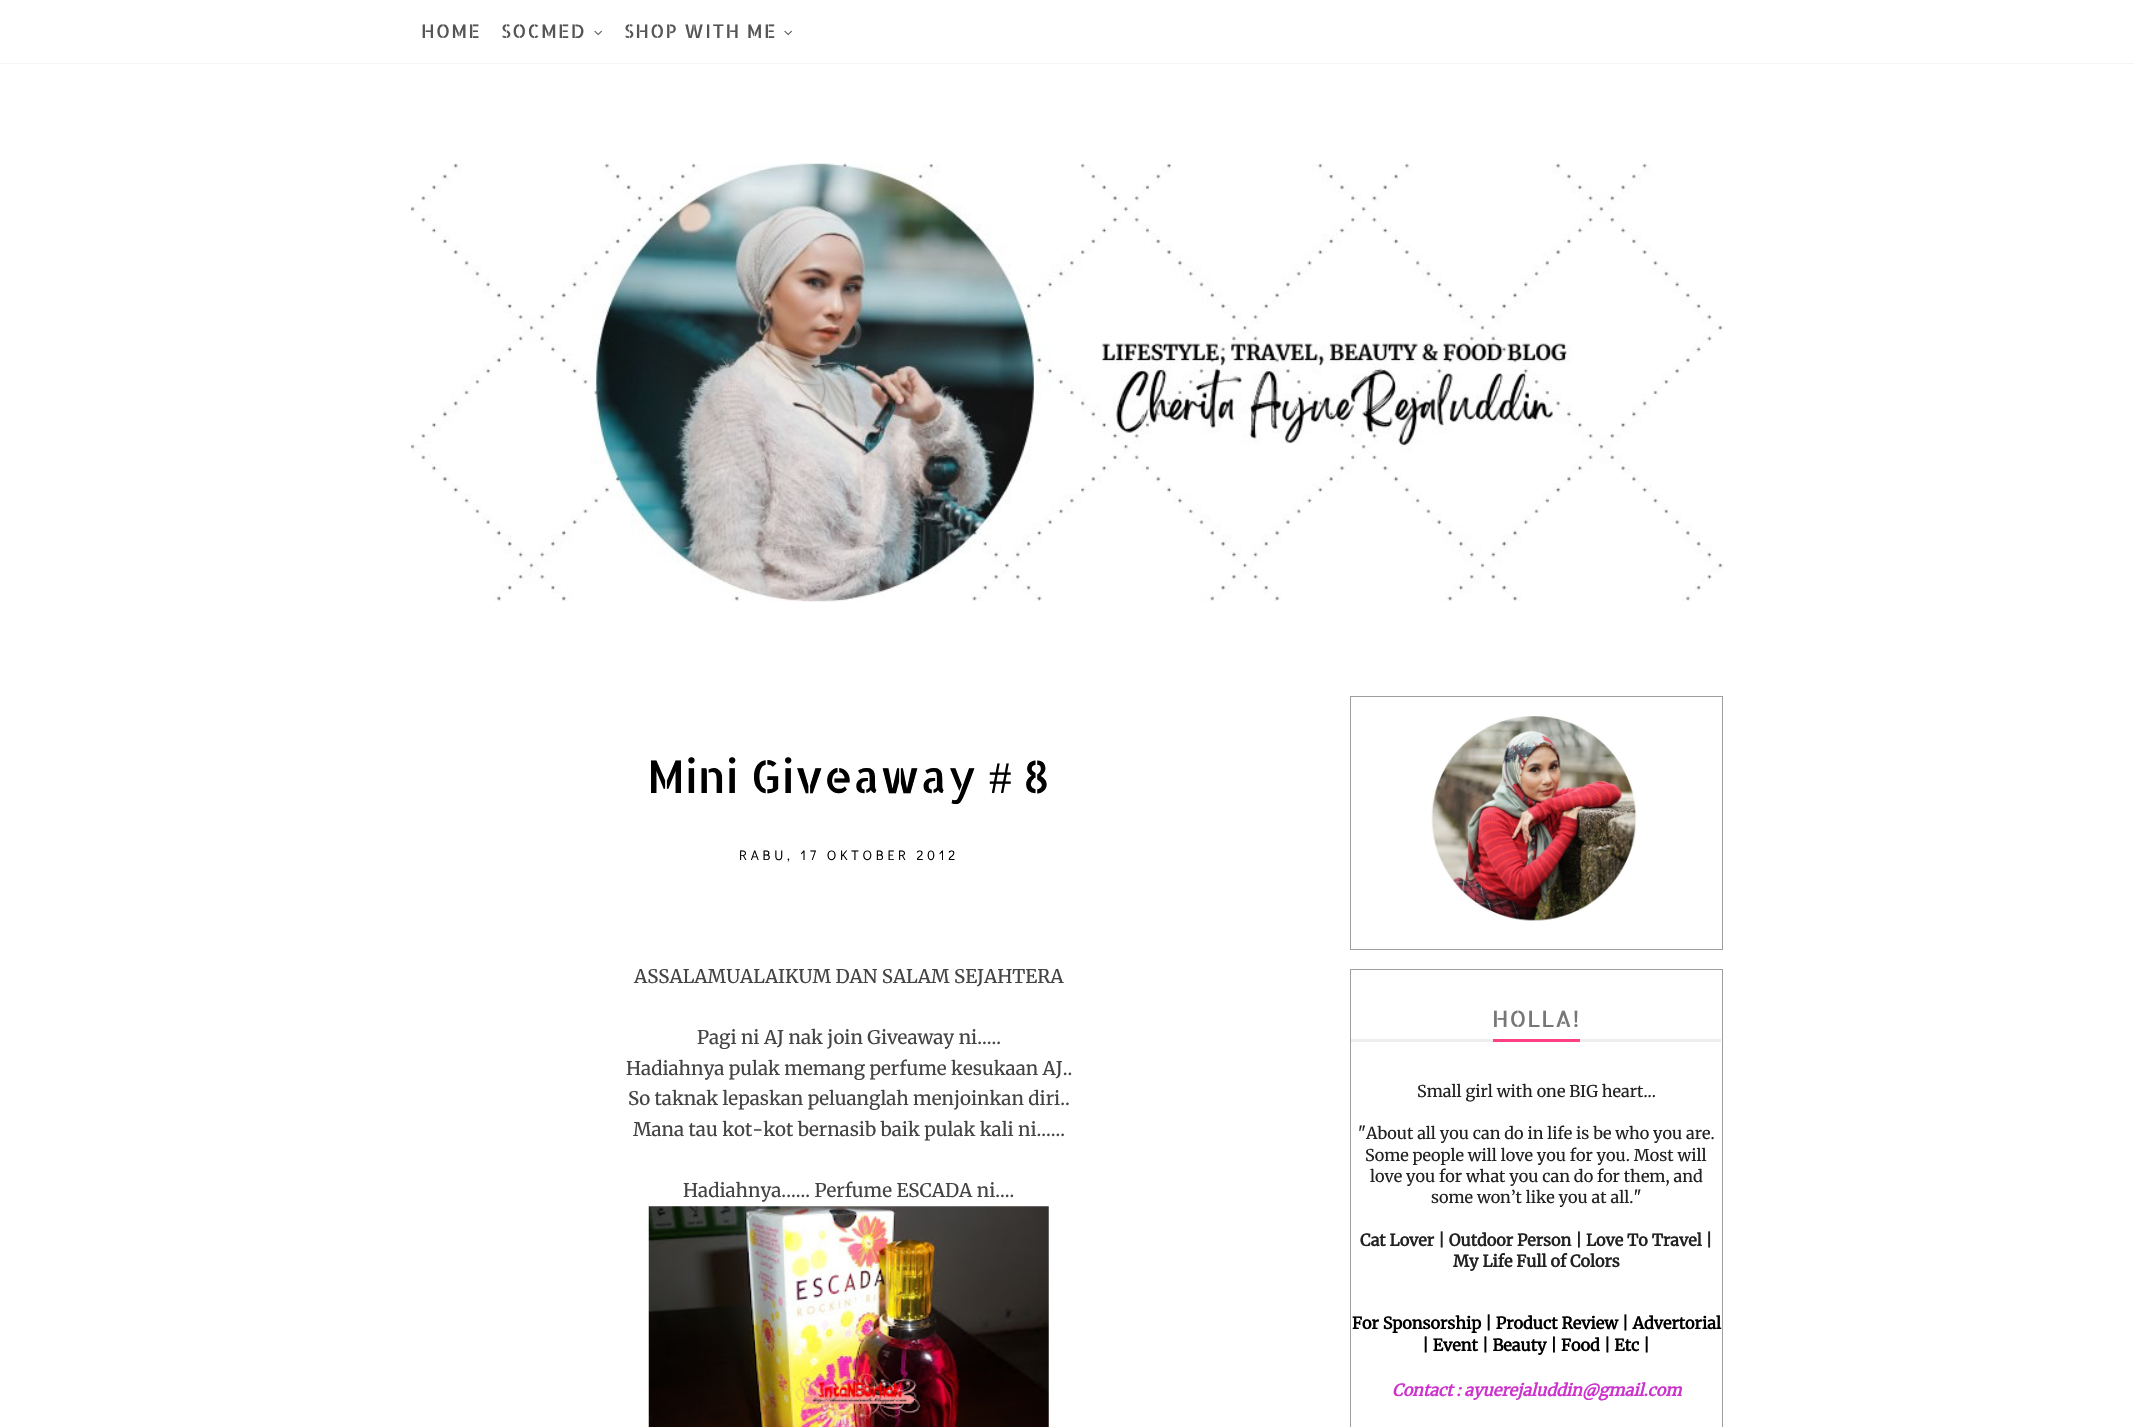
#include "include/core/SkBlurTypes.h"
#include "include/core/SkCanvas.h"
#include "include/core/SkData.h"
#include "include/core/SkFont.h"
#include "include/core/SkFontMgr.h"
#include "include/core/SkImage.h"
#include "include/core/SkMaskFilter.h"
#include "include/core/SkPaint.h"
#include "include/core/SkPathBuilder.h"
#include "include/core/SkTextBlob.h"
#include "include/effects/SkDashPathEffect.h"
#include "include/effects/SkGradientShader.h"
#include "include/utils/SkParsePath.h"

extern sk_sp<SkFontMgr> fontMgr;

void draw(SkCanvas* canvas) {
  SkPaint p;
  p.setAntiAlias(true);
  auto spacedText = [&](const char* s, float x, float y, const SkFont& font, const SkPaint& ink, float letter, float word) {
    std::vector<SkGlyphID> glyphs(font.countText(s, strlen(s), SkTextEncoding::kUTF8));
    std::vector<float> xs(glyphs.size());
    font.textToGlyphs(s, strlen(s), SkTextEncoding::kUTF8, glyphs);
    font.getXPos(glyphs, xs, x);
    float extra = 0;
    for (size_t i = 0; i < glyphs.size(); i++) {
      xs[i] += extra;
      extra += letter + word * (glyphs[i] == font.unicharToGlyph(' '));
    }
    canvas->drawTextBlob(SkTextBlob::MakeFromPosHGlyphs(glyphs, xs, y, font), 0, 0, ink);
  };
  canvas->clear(SK_ColorWHITE);
  p.setColor(SkColorSetRGB(245, 245, 245));
  canvas->drawRect(SkRect::MakeLTRB(0, 63, 2134, 64), p);
  canvas->drawImageRect(SkImages::DeferredFromEncodedData(SkData::MakeFromFileName("images/1.png")), SkRect::MakeLTRB(594, 30, 602, 36), SkSamplingOptions());
  canvas->drawImageRect(SkImages::DeferredFromEncodedData(SkData::MakeFromFileName("images/1.png")), SkRect::MakeLTRB(784, 30, 792, 36), SkSamplingOptions());
  canvas->drawImageRect(SkImages::DeferredFromEncodedData(SkData::MakeFromFileName("images/2.png")), SkRect::MakeLTRB(411, 163, 1724, 602), SkSamplingOptions());
  canvas->drawImageRect(SkImages::DeferredFromEncodedData(SkData::MakeFromFileName("images/3.png")), SkRect::MakeLTRB(648, 1206, 1049, 1427), SkSamplingOptions());
  p.setStyle(SkPaint::kStroke_Style);
  p.setStrokeWidth(1);
  p.setColor(SkColorSetRGB(158, 158, 158));
  canvas->drawRect(SkRect::MakeLTRB(1350.5f, 696.5f, 1722.5f, 949.5f), p);
  canvas->drawImageRect(SkImages::DeferredFromEncodedData(SkData::MakeFromFileName("images/4.png")), SkRect::MakeLTRB(1431, 716, 1637, 921), SkSamplingOptions());
  canvas->drawRect(SkRect::MakeLTRB(1350.5f, 969.5f, 1722.5f, 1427.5f), p);
  p.setStyle(SkPaint::kFill_Style);
  p.setColor(SkColorSetRGB(238, 238, 238));
  canvas->drawRect(SkRect::MakeLTRB(1351, 1039, 1721, 1042), p);
  p.setColor(SkColorSetRGB(255, 64, 133));
  canvas->drawRect(SkRect::MakeLTRB(1493, 1039, 1580, 1042), p);
  SkFont font1(fontMgr->matchFamilyStyle("Allerta Stencil", SkFontStyle::Normal()), 18.75f);
  font1.setSubpixel(true);
  p.setColor(SkColorSetRGB(85, 85, 85));
  spacedText("HOME", 421, 38, font1, p, 1.25f, 0);
  spacedText("SOCMED", 501, 38, font1, p, 1.25f, 0);
  spacedText("SHOP WITH ME", 624, 38, font1, p, 1.25f, 0);
  SkFont font2(fontMgr->matchFamilyStyle("Allerta Stencil", SkFontStyle::Normal()), 45);
  font2.setSubpixel(true);
  p.setColor(SK_ColorBLACK);
  canvas->drawString("Mini Giveaway", 647, 793, font2, p);
  SkFont font3(fontMgr->matchFamilyStyle("Liberation Serif", SkFontStyle::Normal()), 45);
  font3.setSubpixel(true);
  canvas->drawString("#", 989, 793, font3, p);
  canvas->drawString("8", 1023, 793, font2, p);
  SkFont font4(fontMgr->matchFamilyStyle("Didact Gothic", SkFontStyle::Normal()), 13.75f);
  font4.setSubpixel(true);
  spacedText("RABU, 17 OKTOBER 2012", 739, 860, font4, p, 3.75f, 0);
  SkFont font5(fontMgr->matchFamilyStyle("Merriweather", SkFontStyle(300, SkFontStyle::kNormal_Width, SkFontStyle::kUpright_Slant)), 18.75f);
  font5.setSubpixel(true);
  p.setColor(SkColorSetRGB(68, 68, 68));
  canvas->drawString("ASSALAMUALAIKUM DAN SALAM SEJAHTERA", 634, 983, font5, p);
  canvas->drawString("Pagi ni AJ nak join Giveaway ni.....", 697, 1044, font5, p);
  canvas->drawString("Hadiahnya pulak memang perfume kesukaan AJ..", 626, 1075, font5, p);
  canvas->drawString("So taknak lepaskan peluanglah menjoinkan diri..", 628, 1105, font5, p);
  canvas->drawString("Mana tau kot-kot bernasib baik pulak kali ni......", 633, 1136, font5, p);
  canvas->drawString("Hadiahnya...... Perfume ESCADA ni....", 683, 1197, font5, p);
  SkFont font6(fontMgr->matchFamilyStyle("Allerta Stencil", SkFontStyle::Normal()), 22.5f);
  font6.setSubpixel(true);
  p.setColor(SkColorSetRGB(119, 119, 119));
  spacedText("HOLLA!", 1492, 1027, font6, p, 1, 0);
  SkFont font7(fontMgr->matchFamilyStyle("Merriweather", SkFontStyle(300, SkFontStyle::kNormal_Width, SkFontStyle::kUpright_Slant)), 16.25f);
  font7.setSubpixel(true);
  p.setColor(SkColorSetRGB(34, 34, 34));
  canvas->drawString("Small girl with one BIG heart...", 1417, 1097, font7, p);
  canvas->drawString("\"About all you can do in life is be who you are.", 1358, 1139, font7, p);
  canvas->drawString("Some people will love you for you. Most will", 1365, 1161, font7, p);
  canvas->drawString("love you for what you can do for them, and", 1370, 1182, font7, p);
  canvas->drawString("some won’t like you at all.\"", 1431, 1203, font7, p);
  SkFont font8(fontMgr->matchFamilyStyle("Merriweather", SkFontStyle::Bold()), 16.25f);
  font8.setSubpixel(true);
  canvas->drawString("Cat Lover | Outdoor Person | Love To Travel |", 1360, 1246, font8, p);
  canvas->drawString("My Life Full of Colors", 1453, 1267, font8, p);
  p.setColor(SK_ColorBLACK);
  canvas->drawString("For Sponsorship | Product Review | Advertorial", 1352, 1329, font8, p);
  canvas->drawString("| Event | Beauty | Food | Etc |", 1422, 1351, font8, p);
  SkFont font9(fontMgr->matchFamilyStyle("Merriweather", SkFontStyle::BoldItalic()), 16.25f);
  font9.setSubpixel(true);
  p.setColor(SkColorSetRGB(204, 51, 204));
  canvas->drawString("Contact : ayuerejaluddin@gmail.com", 1392, 1396, font9, p);
}
